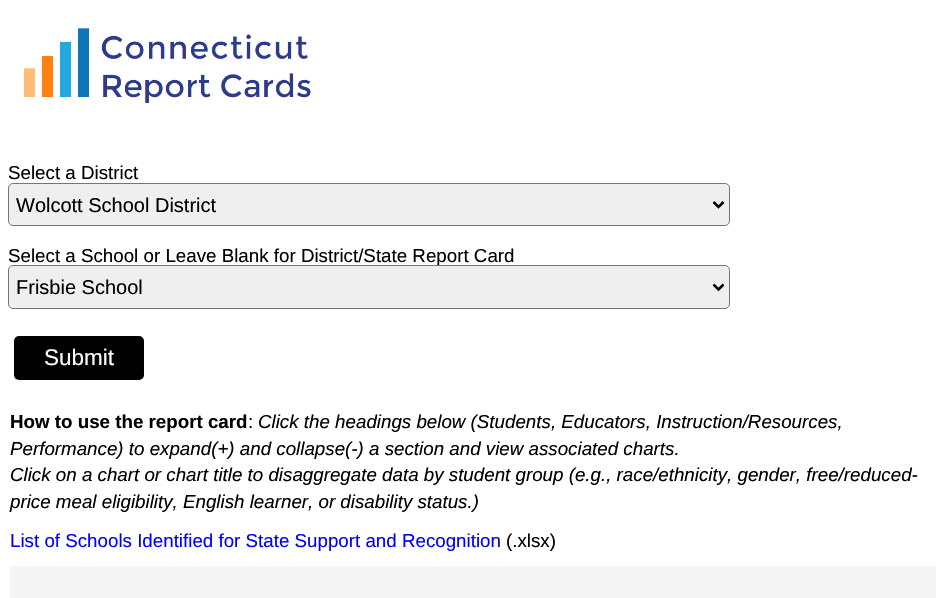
#include "include/core/SkBlurTypes.h"
#include "include/core/SkCanvas.h"
#include "include/core/SkData.h"
#include "include/core/SkFont.h"
#include "include/core/SkFontMgr.h"
#include "include/core/SkImage.h"
#include "include/core/SkMaskFilter.h"
#include "include/core/SkPaint.h"
#include "include/core/SkPathBuilder.h"
#include "include/core/SkTextBlob.h"
#include "include/effects/SkDashPathEffect.h"
#include "include/effects/SkGradientShader.h"
#include "include/utils/SkParsePath.h"

extern sk_sp<SkFontMgr> fontMgr;

void draw(SkCanvas* canvas) {
  SkPaint p;
  p.setAntiAlias(true);
  canvas->clear(SK_ColorWHITE);
  canvas->drawImageRect(SkImages::DeferredFromEncodedData(SkData::MakeFromFileName("images/1.png")), SkRect::MakeLTRB(24, 28, 311, 103), SkSamplingOptions());
  p.setColor(SkColorSetRGB(239, 239, 239));
  canvas->drawRoundRect(SkRect::MakeLTRB(8.5f, 183.5f, 729.5f, 225.5f), 4.5f, 4.5f, p);
  p.setStyle(SkPaint::kStroke_Style);
  p.setStrokeWidth(1);
  p.setColor(SkColorSetRGB(118, 118, 118));
  canvas->drawRoundRect(SkRect::MakeLTRB(8.5f, 183.5f, 729.5f, 225.5f), 4.5f, 4.5f, p);
  p.setStrokeWidth(2.5f);
  p.setColor(SK_ColorBLACK);
  canvas->drawPath(SkPathBuilder().moveTo(713.5f, 202).lineTo(718.5f, 207).lineTo(723.5f, 202).detach(), p);
  p.setStyle(SkPaint::kFill_Style);
  canvas->drawRoundRect(SkRect::MakeLTRB(14, 336, 144, 380), 5, 5, p);
  p.setColor(SkColorSetRGB(245, 245, 245));
  canvas->drawRect(SkRect::MakeLTRB(10, 566, 936, 598), p);
  SkFont font1(fontMgr->matchFamilyStyle("Liberation Sans", SkFontStyle::Normal()), 18.75f);
  font1.setSubpixel(true);
  p.setColor(SK_ColorBLACK);
  canvas->drawString("Select a District", 8, 179, font1, p);
  SkFont font2(fontMgr->matchFamilyStyle("Liberation Sans", SkFontStyle::Normal()), 20);
  font2.setSubpixel(true);
  canvas->drawString("Wolcott School District", 16, 212, font2, p);
  canvas->drawString("Select a School or Leave Blank for District/State Report Card", 8, 262, font1, p);
  p.setColor(SkColorSetRGB(239, 239, 239));
  canvas->drawRoundRect(SkRect::MakeLTRB(8.5f, 265.5f, 729.5f, 308.5f), 4.5f, 4.5f, p);
  p.setStyle(SkPaint::kStroke_Style);
  p.setStrokeWidth(1);
  p.setColor(SkColorSetRGB(118, 118, 118));
  canvas->drawRoundRect(SkRect::MakeLTRB(8.5f, 265.5f, 729.5f, 308.5f), 4.5f, 4.5f, p);
  p.setStrokeWidth(2.5f);
  p.setColor(SK_ColorBLACK);
  canvas->drawPath(SkPathBuilder().moveTo(713.5f, 284.5f).lineTo(718.5f, 289.5f).lineTo(723.5f, 284.5f).detach(), p);
  p.setStyle(SkPaint::kFill_Style);
  canvas->drawString("Frisbie School", 16, 294, font2, p);
  SkFont font3(fontMgr->matchFamilyStyle("Liberation Sans", SkFontStyle::Normal()), 22.5f);
  font3.setSubpixel(true);
  p.setColor(SK_ColorWHITE);
  canvas->drawString("Submit", 44, 365, font3, p);
  SkFont font4(fontMgr->matchFamilyStyle("Liberation Sans", SkFontStyle::Bold()), 18.75f);
  font4.setSubpixel(true);
  p.setColor(SK_ColorBLACK);
  canvas->drawString("How to use the report card", 10, 428, font4, p);
  canvas->drawString(":", 248, 428, font1, p);
  SkFont font5(fontMgr->matchFamilyStyle("Liberation Sans", SkFontStyle::Italic()), 18.75f);
  font5.setSubpixel(true);
  canvas->drawString("Click the headings below (Students, Educators, Instruction/Resources,", 258, 428, font5, p);
  canvas->drawString("Performance) to expand(+) and collapse(-) a section and view associated charts.", 10, 455, font5, p);
  canvas->drawString("Click on a chart or chart title to disaggregate data by student group (e.g., race/ethnicity, gender, free/reduced-", 10, 481, font5, p);
  canvas->drawString("price meal eligibility, English learner, or disability status.)", 10, 508, font5, p);
  p.setColor(SkColorSetRGB(0, 0, 255));
  canvas->drawString("List of Schools Identified for State Support and Recognition", 10, 547, font1, p);
  p.setColor(SK_ColorBLACK);
  canvas->drawString("(.xlsx)", 506, 547, font1, p);
}
